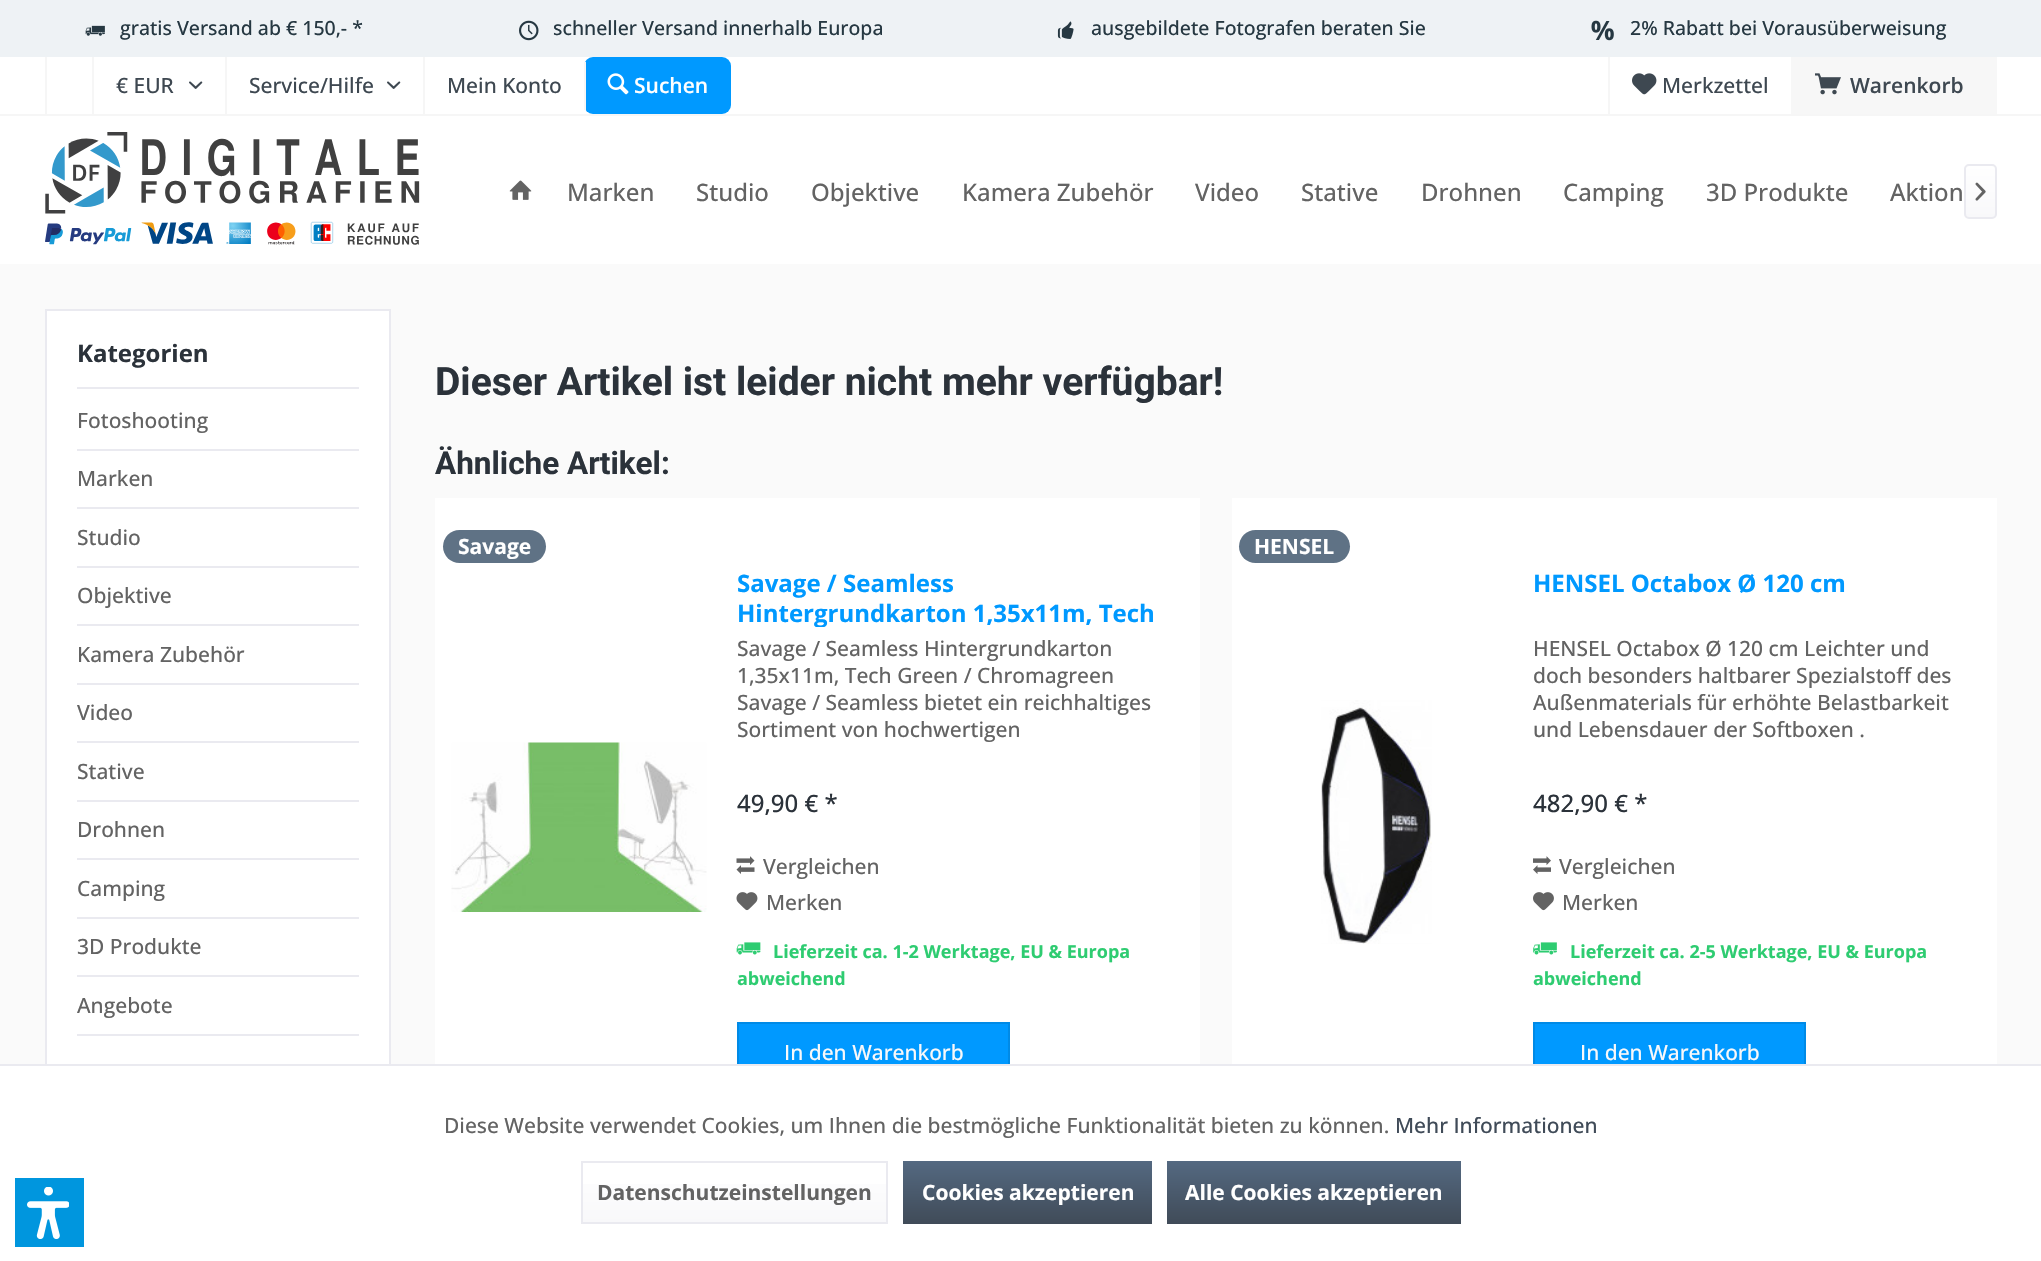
#include "include/core/SkBlurTypes.h"
#include "include/core/SkCanvas.h"
#include "include/core/SkData.h"
#include "include/core/SkFont.h"
#include "include/core/SkFontMgr.h"
#include "include/core/SkImage.h"
#include "include/core/SkMaskFilter.h"
#include "include/core/SkPaint.h"
#include "include/core/SkPathBuilder.h"
#include "include/core/SkTextBlob.h"
#include "include/effects/SkDashPathEffect.h"
#include "include/effects/SkGradientShader.h"
#include "include/utils/SkParsePath.h"

extern sk_sp<SkFontMgr> fontMgr;

void draw(SkCanvas* canvas) {
  SkPaint p;
  p.setAntiAlias(true);
  canvas->clear(SkColorSetRGB(250, 250, 250));
  p.setColor(SK_ColorWHITE);
  canvas->drawRect(SkRect::MakeLTRB(0, 57, 2041, 114), p);
  p.setColor(SkColorSetRGB(238, 242, 245));
  canvas->drawRect(SkRect::MakeLTRB(0, 0, 2041, 57), p);
  canvas->drawImageRect(SkImages::DeferredFromEncodedData(SkData::MakeFromFileName("images/1.png")), SkRect::MakeLTRB(85, 25, 105, 36), SkSamplingOptions());
  canvas->drawImageRect(SkImages::DeferredFromEncodedData(SkData::MakeFromFileName("images/2.png")), SkRect::MakeLTRB(519, 20, 539, 41), SkSamplingOptions());
  canvas->drawImageRect(SkImages::DeferredFromEncodedData(SkData::MakeFromFileName("images/3.png")), SkRect::MakeLTRB(1057, 21, 1074, 39), SkSamplingOptions());
  canvas->drawImageRect(SkImages::DeferredFromEncodedData(SkData::MakeFromFileName("images/4.png")), SkRect::MakeLTRB(1591, 20, 1614, 41), SkSamplingOptions());
  p.setColor(SkColorSetRGB(246, 246, 246));
  canvas->drawRect(SkRect::MakeLTRB(45, 57, 47, 114), p);
  canvas->drawRect(SkRect::MakeLTRB(92, 57, 94, 114), p);
  canvas->drawImageRect(SkImages::DeferredFromEncodedData(SkData::MakeFromFileName("images/5.png")), SkRect::MakeLTRB(189, 81, 203, 89), SkSamplingOptions());
  canvas->drawRect(SkRect::MakeLTRB(225, 57, 227, 114), p);
  canvas->drawImageRect(SkImages::DeferredFromEncodedData(SkData::MakeFromFileName("images/5.png")), SkRect::MakeLTRB(387, 81, 401, 89), SkSamplingOptions());
  canvas->drawRect(SkRect::MakeLTRB(423, 57, 425, 114), p);
  p.setColor(SkColorSetRGB(0, 153, 255));
  canvas->drawRoundRect(SkRect::MakeLTRB(584, 57, 731, 114), 9, 9, p);
  p.setColor(SkColorSetRGB(246, 246, 246));
  canvas->drawRect(SkRect::MakeLTRB(584, 62, 586, 110), p);
  canvas->drawImageRect(SkImages::DeferredFromEncodedData(SkData::MakeFromFileName("images/6.png")), SkRect::MakeLTRB(607, 73, 629, 95), SkSamplingOptions());
  canvas->drawRect(SkRect::MakeLTRB(1608, 57, 1610, 114), p);
  canvas->drawImageRect(SkImages::DeferredFromEncodedData(SkData::MakeFromFileName("images/7.png")), SkRect::MakeLTRB(1632, 73, 1657, 95), SkSamplingOptions());
  p.setColor(SkColorSetRGB(247, 247, 247));
  canvas->drawRect(SkRect::MakeLTRB(1791, 57, 1997, 114), p);
  canvas->drawImageRect(SkImages::DeferredFromEncodedData(SkData::MakeFromFileName("images/8.png")), SkRect::MakeLTRB(1815, 73, 1841, 95), SkSamplingOptions());
  p.setColor(SK_ColorWHITE);
  canvas->drawRect(SkRect::MakeLTRB(0, 116, 2041, 264), p);
  p.setColor(SkColorSetRGB(246, 246, 246));
  canvas->drawRect(SkRect::MakeLTRB(0, 114, 2041, 116), p);
  canvas->drawImageRect(SkImages::DeferredFromEncodedData(SkData::MakeFromFileName("images/9.png")), SkRect::MakeLTRB(45, 132, 420, 245), SkSamplingOptions());
  canvas->drawImageRect(SkImages::DeferredFromEncodedData(SkData::MakeFromFileName("images/10.png")), SkRect::MakeLTRB(509, 180, 532, 200), SkSamplingOptions());
  {
    const SkColor colors[] = {SK_ColorWHITE, SkColorSetRGB(248, 248, 250)};
    const float stops[] = {0, 1};
    const SkPoint ends[] = {{1980, 165}, {1980, 218}};
    p.setShader(SkGradientShader::MakeLinear(ends, colors, stops, 2, SkTileMode::kClamp));
    p.setAlpha(255);
  }
  canvas->drawRoundRect(SkRect::MakeLTRB(1965, 165, 1995, 218), 3, 3, p);
  p.setStyle(SkPaint::kStroke_Style);
  p.setStrokeWidth(2);
  p.setShader(nullptr);
  p.setColor(SkColorSetRGB(234, 234, 240));
  canvas->drawRoundRect(SkRect::MakeLTRB(1965, 165, 1996, 218), 4, 4, p);
  canvas->drawImageRect(SkImages::DeferredFromEncodedData(SkData::MakeFromFileName("images/11.png")), SkRect::MakeLTRB(1975, 182, 1986, 201), SkSamplingOptions());
  p.setStyle(SkPaint::kFill_Style);
  canvas->drawRect(SkRect::MakeLTRB(45, 309, 390, 311), p);
  canvas->drawRect(SkRect::MakeLTRB(389, 309, 391, 392), p);
  canvas->drawRect(SkRect::MakeLTRB(45, 309, 47, 392), p);
  p.setColor(SK_ColorWHITE);
  canvas->drawRect(SkRect::MakeLTRB(47, 311, 389, 1064), p);
  p.setColor(SkColorSetRGB(234, 234, 240));
  canvas->drawRect(SkRect::MakeLTRB(77, 387, 359, 389), p);
  canvas->drawRect(SkRect::MakeLTRB(389, 392, 391, 1064), p);
  canvas->drawRect(SkRect::MakeLTRB(45, 392, 47, 1064), p);
  canvas->drawRect(SkRect::MakeLTRB(77, 449, 359, 451), p);
  canvas->drawRect(SkRect::MakeLTRB(77, 507, 359, 509), p);
  canvas->drawRect(SkRect::MakeLTRB(77, 566, 359, 568), p);
  canvas->drawRect(SkRect::MakeLTRB(77, 624, 359, 626), p);
  canvas->drawRect(SkRect::MakeLTRB(77, 683, 359, 685), p);
  canvas->drawRect(SkRect::MakeLTRB(77, 741, 359, 743), p);
  canvas->drawRect(SkRect::MakeLTRB(77, 800, 359, 802), p);
  canvas->drawRect(SkRect::MakeLTRB(77, 858, 359, 860), p);
  canvas->drawRect(SkRect::MakeLTRB(77, 917, 359, 919), p);
  canvas->drawRect(SkRect::MakeLTRB(77, 975, 359, 977), p);
  canvas->drawRect(SkRect::MakeLTRB(77, 1034, 359, 1036), p);
  p.setColor(SK_ColorWHITE);
  canvas->drawRect(SkRect::MakeLTRB(437, 500, 1198, 1064), p);
  p.setStyle(SkPaint::kStroke_Style);
  canvas->drawRect(SkRect::MakeLTRB(436, 499, 1199, 1154), p);
  p.setStyle(SkPaint::kFill_Style);
  p.setColor(SkColorSetRGB(95, 114, 133));
  canvas->drawRoundRect(SkRect::MakeLTRB(443, 530, 546, 563), 16.5f, 16.5f, p);
  canvas->drawImageRect(SkImages::DeferredFromEncodedData(SkData::MakeFromFileName("images/12.png")), SkRect::MakeLTRB(451, 742, 707, 912), SkSamplingOptions());
  canvas->drawImageRect(SkImages::DeferredFromEncodedData(SkData::MakeFromFileName("images/13.png")), SkRect::MakeLTRB(736, 856, 755, 874), SkSamplingOptions());
  canvas->drawImageRect(SkImages::DeferredFromEncodedData(SkData::MakeFromFileName("images/14.png")), SkRect::MakeLTRB(736, 892, 758, 911), SkSamplingOptions());
  canvas->drawImageRect(SkImages::DeferredFromEncodedData(SkData::MakeFromFileName("images/15.png")), SkRect::MakeLTRB(736, 942, 761, 955), SkSamplingOptions());
  p.setColor(SkColorSetRGB(0, 153, 255));
  canvas->drawRect(SkRect::MakeLTRB(739, 1024, 1008, 1064), p);
  p.setStyle(SkPaint::kStroke_Style);
  p.setColor(SkColorSetRGB(0, 138, 230));
  canvas->drawRect(SkRect::MakeLTRB(738, 1023, 1009, 1078), p);
  p.setStyle(SkPaint::kFill_Style);
  p.setColor(SK_ColorWHITE);
  canvas->drawRect(SkRect::MakeLTRB(1234, 500, 1995, 1064), p);
  p.setStyle(SkPaint::kStroke_Style);
  canvas->drawRect(SkRect::MakeLTRB(1233, 499, 1996, 1154), p);
  p.setStyle(SkPaint::kFill_Style);
  p.setColor(SkColorSetRGB(95, 114, 133));
  canvas->drawRoundRect(SkRect::MakeLTRB(1239, 530, 1350, 563), 16.5f, 16.5f, p);
  canvas->drawImageRect(SkImages::DeferredFromEncodedData(SkData::MakeFromFileName("images/16.png")), SkRect::MakeLTRB(1321, 700, 1432, 944), SkSamplingOptions());
  canvas->drawImageRect(SkImages::DeferredFromEncodedData(SkData::MakeFromFileName("images/17.png")), SkRect::MakeLTRB(1533, 856, 1551, 874), SkSamplingOptions());
  canvas->drawImageRect(SkImages::DeferredFromEncodedData(SkData::MakeFromFileName("images/18.png")), SkRect::MakeLTRB(1533, 892, 1554, 911), SkSamplingOptions());
  canvas->drawImageRect(SkImages::DeferredFromEncodedData(SkData::MakeFromFileName("images/19.png")), SkRect::MakeLTRB(1533, 942, 1557, 955), SkSamplingOptions());
  p.setColor(SkColorSetRGB(0, 153, 255));
  canvas->drawRect(SkRect::MakeLTRB(1535, 1024, 1804, 1064), p);
  p.setStyle(SkPaint::kStroke_Style);
  p.setColor(SkColorSetRGB(0, 138, 230));
  canvas->drawRect(SkRect::MakeLTRB(1534, 1023, 1805, 1078), p);
  p.setStyle(SkPaint::kFill_Style);
  p.setColor(SK_ColorWHITE);
  canvas->drawRect(SkRect::MakeLTRB(0, 1066, 2041, 1261), p);
  p.setColor(SkColorSetRGB(0, 150, 222));
  canvas->drawRect(SkRect::MakeLTRB(15, 1178, 84, 1247), p);
  canvas->drawImageRect(SkImages::DeferredFromEncodedData(SkData::MakeFromFileName("images/20.png")), SkRect::MakeLTRB(27, 1187, 69, 1239), SkSamplingOptions());
  p.setColor(SkColorSetRGB(234, 234, 240));
  canvas->drawRect(SkRect::MakeLTRB(0, 1064, 2041, 1066), p);
  {
    const SkColor colors[] = {SK_ColorWHITE, SkColorSetRGB(248, 248, 250)};
    const float stops[] = {0, 1};
    const SkPoint ends[] = {{734, 1163}, {734, 1223}};
    p.setShader(SkGradientShader::MakeLinear(ends, colors, stops, 2, SkTileMode::kClamp));
    p.setAlpha(255);
  }
  canvas->drawRect(SkRect::MakeLTRB(583, 1184, 886, 1222), p);
  p.setStyle(SkPaint::kStroke_Style);
  p.setShader(nullptr);
  p.setColor(SkColorSetRGB(234, 234, 240));
  canvas->drawRect(SkRect::MakeLTRB(582, 1162, 887, 1223), p);
  p.setStyle(SkPaint::kFill_Style);
  {
    const SkColor colors[] = {SkColorSetRGB(84, 105, 129), SkColorSetRGB(64, 75, 88)};
    const float stops[] = {0, 1};
    const SkPoint ends[] = {{1028, 1161}, {1028, 1224}};
    p.setShader(SkGradientShader::MakeLinear(ends, colors, stops, 2, SkTileMode::kClamp));
    p.setAlpha(255);
  }
  canvas->drawRect(SkRect::MakeLTRB(903, 1161, 1152, 1224), p);
  {
    const SkColor colors[] = {SkColorSetRGB(84, 105, 129), SkColorSetRGB(64, 75, 88)};
    const float stops[] = {0, 1};
    const SkPoint ends[] = {{1314, 1161}, {1314, 1224}};
    p.setShader(SkGradientShader::MakeLinear(ends, colors, stops, 2, SkTileMode::kClamp));
    p.setAlpha(255);
  }
  canvas->drawRect(SkRect::MakeLTRB(1167, 1161, 1461, 1224), p);
  SkFont font1(fontMgr->matchFamilyStyle("Open Sans", SkFontStyle(500, SkFontStyle::kNormal_Width, SkFontStyle::kUpright_Slant)), 19.5f);
  font1.setSubpixel(true);
  p.setShader(nullptr);
  p.setColor(SkColorSetRGB(38, 56, 66));
  canvas->drawString("gratis Versand ab € 150,- *", 120, 35, font1, p);
  canvas->drawString("schneller Versand innerhalb Europa", 553, 35, font1, p);
  canvas->drawString("ausgebildete Fotografen beraten Sie", 1091, 35, font1, p);
  canvas->drawString("2% Rabatt bei Vorausüberweisung", 1630, 35, font1, p);
  SkFont font2(fontMgr->matchFamilyStyle("Open Sans", SkFontStyle(500, SkFontStyle::kNormal_Width, SkFontStyle::kUpright_Slant)), 21);
  font2.setSubpixel(true);
  p.setColor(SkColorSetRGB(62, 72, 81));
  canvas->drawString("€ EUR", 116, 93, font2, p);
  canvas->drawString("Service/Hilfe", 249, 93, font2, p);
  canvas->drawString("Mein Konto", 447, 93, font2, p);
  SkFont font3(fontMgr->matchFamilyStyle("Open Sans", SkFontStyle(600, SkFontStyle::kNormal_Width, SkFontStyle::kUpright_Slant)), 21);
  font3.setSubpixel(true);
  p.setColor(SK_ColorWHITE);
  canvas->drawString("Suchen", 634, 93, font3, p);
  p.setColor(SkColorSetRGB(62, 72, 81));
  canvas->drawString("Merkzettel", 1662, 93, font2, p);
  canvas->drawString("Warenkorb", 1850, 93, font3, p);
  SkFont font4(fontMgr->matchFamilyStyle("Open Sans", SkFontStyle(500, SkFontStyle::kNormal_Width, SkFontStyle::kUpright_Slant)), 24);
  font4.setSubpixel(true);
  p.setColor(SkColorSetRGB(99, 99, 99));
  canvas->drawString("Marken", 567, 201, font4, p);
  canvas->drawString("Studio", 696, 201, font4, p);
  canvas->drawString("Objektive", 811, 201, font4, p);
  canvas->drawString("Kamera Zubehör", 962, 201, font4, p);
  canvas->drawString("Video", 1195, 201, font4, p);
  canvas->drawString("Stative", 1301, 201, font4, p);
  canvas->drawString("Drohnen", 1421, 201, font4, p);
  canvas->drawString("Camping", 1563, 201, font4, p);
  canvas->drawString("3D Produkte", 1706, 201, font4, p);
  canvas->drawString("Aktion", 1890, 201, font4, p);
  SkFont font5(fontMgr->matchFamilyStyle("Open Sans", SkFontStyle::Bold()), 24);
  font5.setSubpixel(true);
  p.setColor(SkColorSetRGB(43, 50, 58));
  canvas->drawString("Kategorien", 77, 362, font5, p);
  p.setColor(SkColorSetRGB(99, 99, 99));
  canvas->drawString("Fotoshooting", 77, 428, font2, p);
  canvas->drawString("Marken", 77, 486, font2, p);
  canvas->drawString("Studio", 77, 545, font2, p);
  canvas->drawString("Objektive", 77, 603, font2, p);
  canvas->drawString("Kamera Zubehör", 77, 662, font2, p);
  canvas->drawString("Video", 77, 720, font2, p);
  canvas->drawString("Stative", 77, 779, font2, p);
  canvas->drawString("Drohnen", 77, 837, font2, p);
  canvas->drawString("Camping", 77, 896, font2, p);
  canvas->drawString("3D Produkte", 77, 954, font2, p);
  canvas->drawString("Angebote", 77, 1013, font2, p);
  SkFont font6(fontMgr->matchFamilyStyle("Roboto", SkFontStyle::Bold()), 39);
  font6.setSubpixel(true);
  p.setColor(SkColorSetRGB(43, 50, 58));
  canvas->drawString("Dieser Artikel ist leider nicht mehr verfügbar!", 435, 395, font6, p);
  SkFont font7(fontMgr->matchFamilyStyle("Roboto", SkFontStyle::Bold()), 31.5f);
  font7.setSubpixel(true);
  canvas->drawString("Ähnliche Artikel:", 435, 474, font7, p);
  SkFont font8(fontMgr->matchFamilyStyle("Open Sans", SkFontStyle::Bold()), 21);
  font8.setSubpixel(true);
  p.setColor(SK_ColorWHITE);
  canvas->drawString("Savage", 458, 554, font8, p);
  p.setColor(SkColorSetRGB(0, 153, 255));
  canvas->drawString("Savage / Seamless", 737, 592, font5, p);
  canvas->save();
  canvas->clipRect(SkRect::MakeLTRB(737, 567, 1184, 627));
  canvas->drawString("Hintergrundkarton 1,35x11m, Tech", 737, 622, font5, p);
  canvas->restore();
  p.setColor(SkColorSetRGB(99, 99, 99));
  canvas->drawString("Savage / Seamless Hintergrundkarton", 737, 656, font2, p);
  canvas->drawString("1,35x11m, Tech Green / Chromagreen", 737, 683, font2, p);
  canvas->drawString("Savage / Seamless bietet ein reichhaltiges", 737, 710, font2, p);
  canvas->drawString("Sortiment von hochwertigen", 737, 737, font2, p);
  p.setColor(SkColorSetRGB(43, 50, 58));
  canvas->drawString("49,90 € *", 737, 812, font4, p);
  p.setColor(SkColorSetRGB(99, 99, 99));
  canvas->drawString("Vergleichen", 763, 874, font2, p);
  canvas->drawString("Merken", 766, 910, font2, p);
  SkFont font9(fontMgr->matchFamilyStyle("Open Sans", SkFontStyle::Bold()), 18);
  font9.setSubpixel(true);
  p.setColor(SkColorSetRGB(46, 204, 113));
  canvas->drawString("Lieferzeit ca. 1-2 Werktage, EU & Europa", 773, 958, font9, p);
  canvas->drawString("abweichend", 737, 985, font9, p);
  p.setColor(SkColorSetRGB(248, 248, 250));
  canvas->drawString("In den Warenkorb", 784, 1060, font2, p);
  p.setColor(SK_ColorWHITE);
  canvas->drawString("HENSEL", 1254, 554, font8, p);
  p.setColor(SkColorSetRGB(0, 153, 255));
  canvas->drawString("HENSEL Octabox Ø 120 cm", 1533, 592, font5, p);
  p.setColor(SkColorSetRGB(99, 99, 99));
  canvas->drawString("HENSEL Octabox Ø 120 cm Leichter und", 1533, 656, font2, p);
  canvas->drawString("doch besonders haltbarer Spezialstoff des", 1533, 683, font2, p);
  canvas->drawString("Außenmaterials für erhöhte Belastbarkeit", 1533, 710, font2, p);
  canvas->drawString("und Lebensdauer der Softboxen .", 1533, 737, font2, p);
  p.setColor(SkColorSetRGB(43, 50, 58));
  canvas->drawString("482,90 € *", 1533, 812, font4, p);
  p.setColor(SkColorSetRGB(99, 99, 99));
  canvas->drawString("Vergleichen", 1559, 874, font2, p);
  canvas->drawString("Merken", 1562, 910, font2, p);
  p.setColor(SkColorSetRGB(46, 204, 113));
  canvas->drawString("Lieferzeit ca. 2-5 Werktage, EU & Europa", 1570, 958, font9, p);
  canvas->drawString("abweichend", 1533, 985, font9, p);
  p.setColor(SkColorSetRGB(248, 248, 250));
  canvas->drawString("In den Warenkorb", 1580, 1060, font2, p);
  p.setColor(SkColorSetRGB(99, 99, 99));
  canvas->drawString("Diese Website verwendet Cookies, um Ihnen die bestmögliche Funktionalität bieten zu können.", 444, 1133, font2, p);
  p.setColor(SkColorSetRGB(64, 75, 88));
  canvas->drawString("Mehr Informationen", 1395, 1133, font2, p);
  p.setColor(SkColorSetRGB(99, 99, 99));
  canvas->drawString("Datenschutzeinstellungen", 597, 1200, font8, p);
  p.setColor(SK_ColorWHITE);
  canvas->drawString("Cookies akzeptieren", 922, 1200, font8, p);
  canvas->drawString("Alle Cookies akzeptieren", 1185, 1200, font8, p);
}
